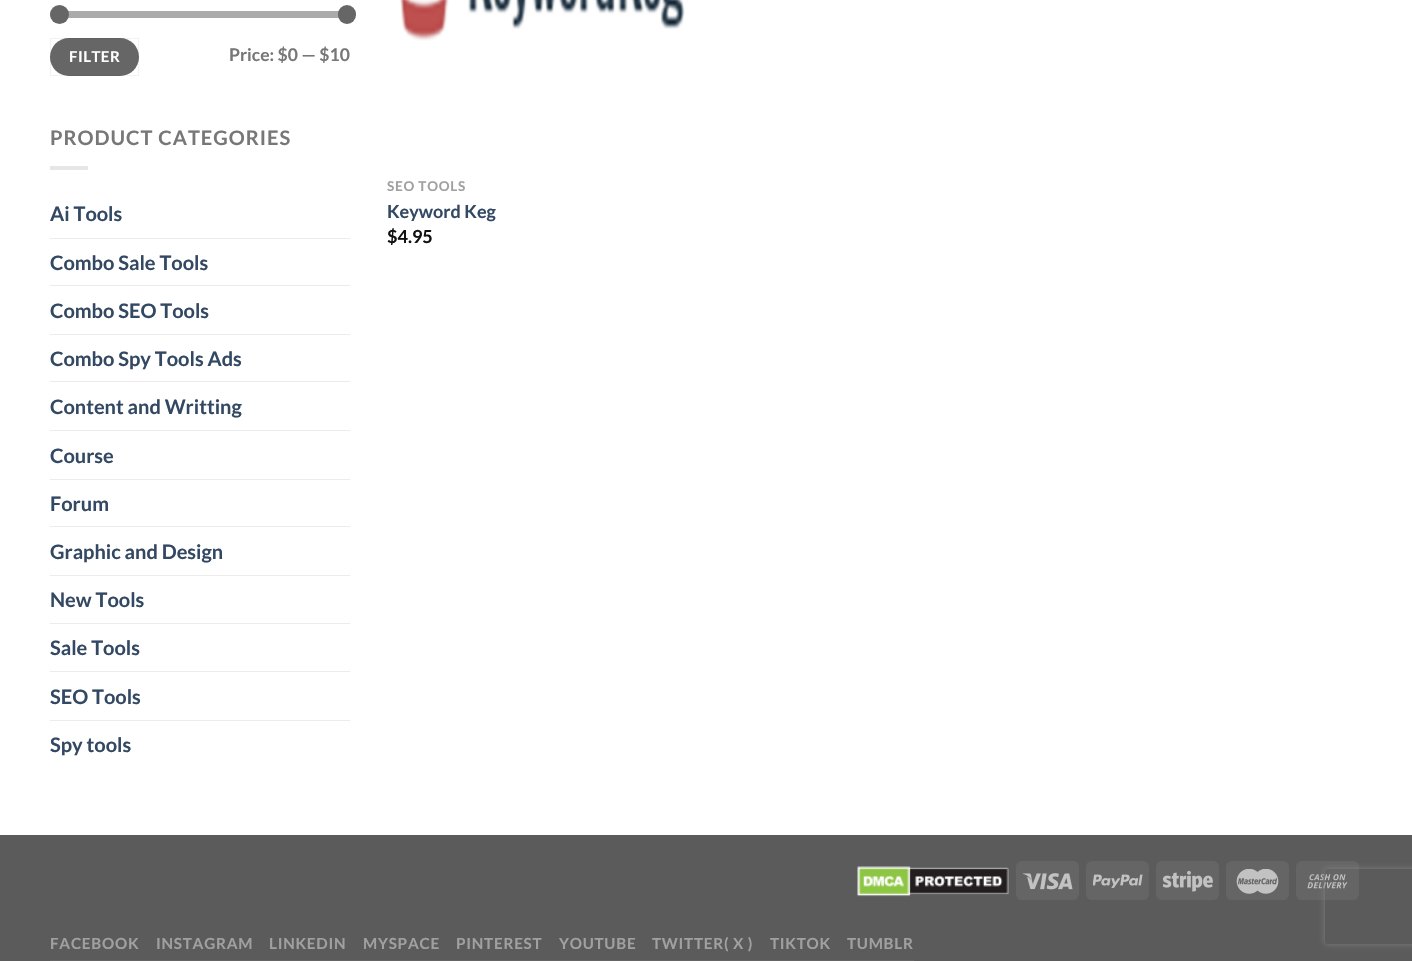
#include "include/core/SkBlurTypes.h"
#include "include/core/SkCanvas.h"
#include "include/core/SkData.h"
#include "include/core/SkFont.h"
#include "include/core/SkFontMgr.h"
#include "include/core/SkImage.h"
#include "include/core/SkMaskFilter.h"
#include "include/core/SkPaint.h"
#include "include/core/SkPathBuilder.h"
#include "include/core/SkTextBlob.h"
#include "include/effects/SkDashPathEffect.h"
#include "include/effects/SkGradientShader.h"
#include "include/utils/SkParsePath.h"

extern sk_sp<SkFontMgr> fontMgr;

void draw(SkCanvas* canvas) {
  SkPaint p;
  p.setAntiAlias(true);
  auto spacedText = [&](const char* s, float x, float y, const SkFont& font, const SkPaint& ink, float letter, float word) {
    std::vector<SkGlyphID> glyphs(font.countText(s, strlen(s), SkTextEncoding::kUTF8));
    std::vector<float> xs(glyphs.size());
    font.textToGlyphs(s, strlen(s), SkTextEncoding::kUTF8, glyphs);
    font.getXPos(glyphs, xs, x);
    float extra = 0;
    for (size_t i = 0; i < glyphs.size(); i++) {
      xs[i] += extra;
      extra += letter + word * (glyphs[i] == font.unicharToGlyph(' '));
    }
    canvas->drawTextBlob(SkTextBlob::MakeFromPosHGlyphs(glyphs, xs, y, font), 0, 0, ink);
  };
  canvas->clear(SK_ColorWHITE);
  p.setColor(SkColorSetRGB(241, 241, 241));
  canvas->drawRoundRect(SkRect::MakeLTRB(50, 11, 350, 18), 3.5f, 3.5f, p);
  p.setColor(SkColorSetARGB(128, 102, 102, 102));
  canvas->drawRoundRect(SkRect::MakeLTRB(50, 11, 350, 18), 3.5f, 3.5f, p);
  p.setColor(SkColorSetRGB(102, 102, 102));
  canvas->drawCircle(59.5f, 14.5f, 9.5f, p);
  canvas->drawRoundRect(SkRect::MakeLTRB(338, 5, 356, 24), 9, 9, p);
  canvas->drawRoundRect(SkRect::MakeLTRB(50, 38, 139, 76), 19, 19, p);
  p.setStyle(SkPaint::kStroke_Style);
  p.setStrokeWidth(1);
  p.setColor(SkColorSetARGB(13, 0, 0, 0));
  canvas->drawRect(SkRect::MakeLTRB(50.5f, 38.5f, 138.5f, 75.5f), p);
  p.setStyle(SkPaint::kFill_Style);
  p.setColor(SkColorSetRGB(230, 230, 230));
  canvas->drawRect(SkRect::MakeLTRB(50, 166, 88, 170), p);
  p.setColor(SkColorSetRGB(236, 236, 236));
  canvas->drawRect(SkRect::MakeLTRB(50, 238, 350, 239), p);
  canvas->drawRect(SkRect::MakeLTRB(50, 285, 350, 286), p);
  canvas->drawRect(SkRect::MakeLTRB(50, 334, 350, 335), p);
  canvas->drawRect(SkRect::MakeLTRB(50, 381, 350, 382), p);
  canvas->drawRect(SkRect::MakeLTRB(50, 430, 350, 431), p);
  canvas->drawRect(SkRect::MakeLTRB(50, 479, 350, 480), p);
  canvas->drawRect(SkRect::MakeLTRB(50, 526, 350, 527), p);
  canvas->drawRect(SkRect::MakeLTRB(50, 575, 350, 576), p);
  canvas->drawRect(SkRect::MakeLTRB(50, 623, 350, 624), p);
  canvas->drawRect(SkRect::MakeLTRB(50, 671, 350, 672), p);
  canvas->drawRect(SkRect::MakeLTRB(50, 720, 350, 721), p);
  canvas->drawImageRect(SkImages::DeferredFromEncodedData(SkData::MakeFromFileName("images/1.png")), SkRect::MakeLTRB(400, 0, 685, 41), SkSamplingOptions());
  p.setColor(SkColorSetRGB(91, 91, 91));
  canvas->drawRect(SkRect::MakeLTRB(0, 835, 1412, 961), p);
  canvas->drawImageRect(SkImages::DeferredFromEncodedData(SkData::MakeFromFileName("images/2.png")), SkRect::MakeLTRB(857, 866, 1009, 897), SkSamplingOptions());
  p.setColor(SkColorSetRGB(101, 101, 101));
  canvas->drawRoundRect(SkRect::MakeLTRB(1016, 861, 1079, 900), 6, 6, p);
  canvas->drawImageRect(SkImages::DeferredFromEncodedData(SkData::MakeFromFileName("images/3.png")), SkRect::MakeLTRB(1023, 873, 1073, 890), SkSamplingOptions());
  canvas->drawRoundRect(SkRect::MakeLTRB(1086, 861, 1149, 900), 6, 6, p);
  canvas->drawImageRect(SkImages::DeferredFromEncodedData(SkData::MakeFromFileName("images/4.png")), SkRect::MakeLTRB(1093, 874, 1143, 888), SkSamplingOptions());
  canvas->drawRoundRect(SkRect::MakeLTRB(1156, 861, 1219, 900), 6, 6, p);
  canvas->drawImageRect(SkImages::DeferredFromEncodedData(SkData::MakeFromFileName("images/5.png")), SkRect::MakeLTRB(1163, 870, 1213, 892), SkSamplingOptions());
  canvas->drawRoundRect(SkRect::MakeLTRB(1226, 861, 1289, 900), 6, 6, p);
  canvas->drawImageRect(SkImages::DeferredFromEncodedData(SkData::MakeFromFileName("images/6.png")), SkRect::MakeLTRB(1236, 869, 1279, 894), SkSamplingOptions());
  canvas->drawRoundRect(SkRect::MakeLTRB(1296, 861, 1359, 900), 6, 6, p);
  canvas->drawImageRect(SkImages::DeferredFromEncodedData(SkData::MakeFromFileName("images/7.png")), SkRect::MakeLTRB(1307, 874, 1348, 889), SkSamplingOptions());
  canvas->drawRect(SkRect::MakeLTRB(50, 960, 914, 961), p);
  canvas->save();
  canvas->clipPath(SkPathBuilder(SkPathFillType::kEvenOdd).moveTo(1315, 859).lineTo(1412, 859).lineTo(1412, 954).lineTo(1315, 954).close().moveTo(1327.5f, 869).lineTo(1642.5f, 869).cubicTo(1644, 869, 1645, 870, 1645, 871.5f).lineTo(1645, 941.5f).cubicTo(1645, 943, 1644, 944, 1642.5f, 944).lineTo(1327.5f, 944).cubicTo(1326, 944, 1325, 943, 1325, 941.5f).lineTo(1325, 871.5f).cubicTo(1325, 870, 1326, 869, 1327.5f, 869).close().detach(), true);
  p.setColor(SkColorSetRGB(128, 128, 128));
  p.setMaskFilter(SkMaskFilter::MakeBlur(kNormal_SkBlurStyle, 3));
  canvas->drawRoundRect(SkRect::MakeLTRB(1325, 869, 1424, 944), 2.5f, 2.5f, p);
  p.setMaskFilter(nullptr);
  canvas->restore();
  SkFont font1(fontMgr->matchFamilyStyle("Lato", SkFontStyle::Bold()), 15);
  font1.setSubpixel(true);
  p.setColor(SK_ColorWHITE);
  spacedText("FILTER", 69, 62, font1, p, 0.5f, 0);
  SkFont font2(fontMgr->matchFamilyStyle("Lato", SkFontStyle::Bold()), 17.5f);
  font2.setSubpixel(true);
  p.setColor(SkColorSetRGB(119, 119, 119));
  canvas->drawString("Price: $0 — $10", 229, 61, font2, p);
  SkFont font3(fontMgr->matchFamilyStyle("Lato", SkFontStyle::Bold()), 20);
  font3.setSubpixel(true);
  spacedText("PRODUCT CATEGORIES", 50, 145, font3, p, 1, 0);
  p.setColor(SkColorSetRGB(51, 72, 98));
  canvas->drawString("Ai Tools", 50, 221, font3, p);
  canvas->drawString("Combo Sale Tools", 50, 270, font3, p);
  canvas->drawString("Combo SEO Tools", 50, 318, font3, p);
  canvas->drawString("Combo Spy Tools Ads", 50, 366, font3, p);
  canvas->drawString("Content and Writting", 50, 414, font3, p);
  canvas->drawString("Course", 50, 463, font3, p);
  canvas->drawString("Forum", 50, 511, font3, p);
  canvas->drawString("Graphic and Design", 50, 559, font3, p);
  canvas->drawString("New Tools", 50, 607, font3, p);
  canvas->drawString("Sale Tools", 50, 655, font3, p);
  canvas->drawString("SEO Tools", 50, 704, font3, p);
  canvas->drawString("Spy tools", 50, 752, font3, p);
  SkFont font4(fontMgr->matchFamilyStyle("Lato", SkFontStyle::Bold()), 13.5f);
  font4.setSubpixel(true);
  p.setColor(SkColorSetRGB(160, 160, 160));
  spacedText("SEO TOOLS", 387, 191, font4, p, 0.75f, 0);
  SkFont font5(fontMgr->matchFamilyStyle("Lato", SkFontStyle::Bold()), 18);
  font5.setSubpixel(true);
  p.setColor(SkColorSetRGB(51, 72, 98));
  canvas->drawString("Keyword Keg", 387, 218, font5, p);
  p.setColor(SkColorSetRGB(17, 17, 17));
  canvas->drawString("$4.95", 387, 243, font5, p);
  SkFont font6(fontMgr->matchFamilyStyle("Lato", SkFontStyle::Bold()), 15.25f);
  font6.setSubpixel(true);
  p.setColor(SkColorSetRGB(160, 160, 160));
  spacedText("FACEBOOK", 50, 949, font6, p, 0.75f, 0);
  spacedText("INSTAGRAM", 156, 949, font6, p, 0.75f, 0);
  spacedText("LINKEDIN", 269, 949, font6, p, 0.75f, 0);
  spacedText("MYSPACE", 363, 949, font6, p, 0.75f, 0);
  spacedText("PINTEREST", 456, 949, font6, p, 0.75f, 0);
  spacedText("YOUTUBE", 559, 949, font6, p, 0.75f, 0);
  spacedText("TWITTER( X )", 652, 949, font6, p, 0.75f, 0);
  spacedText("TIKTOK", 770, 949, font6, p, 0.75f, 0);
  spacedText("TUMBLR", 847, 949, font6, p, 0.75f, 0);
}
